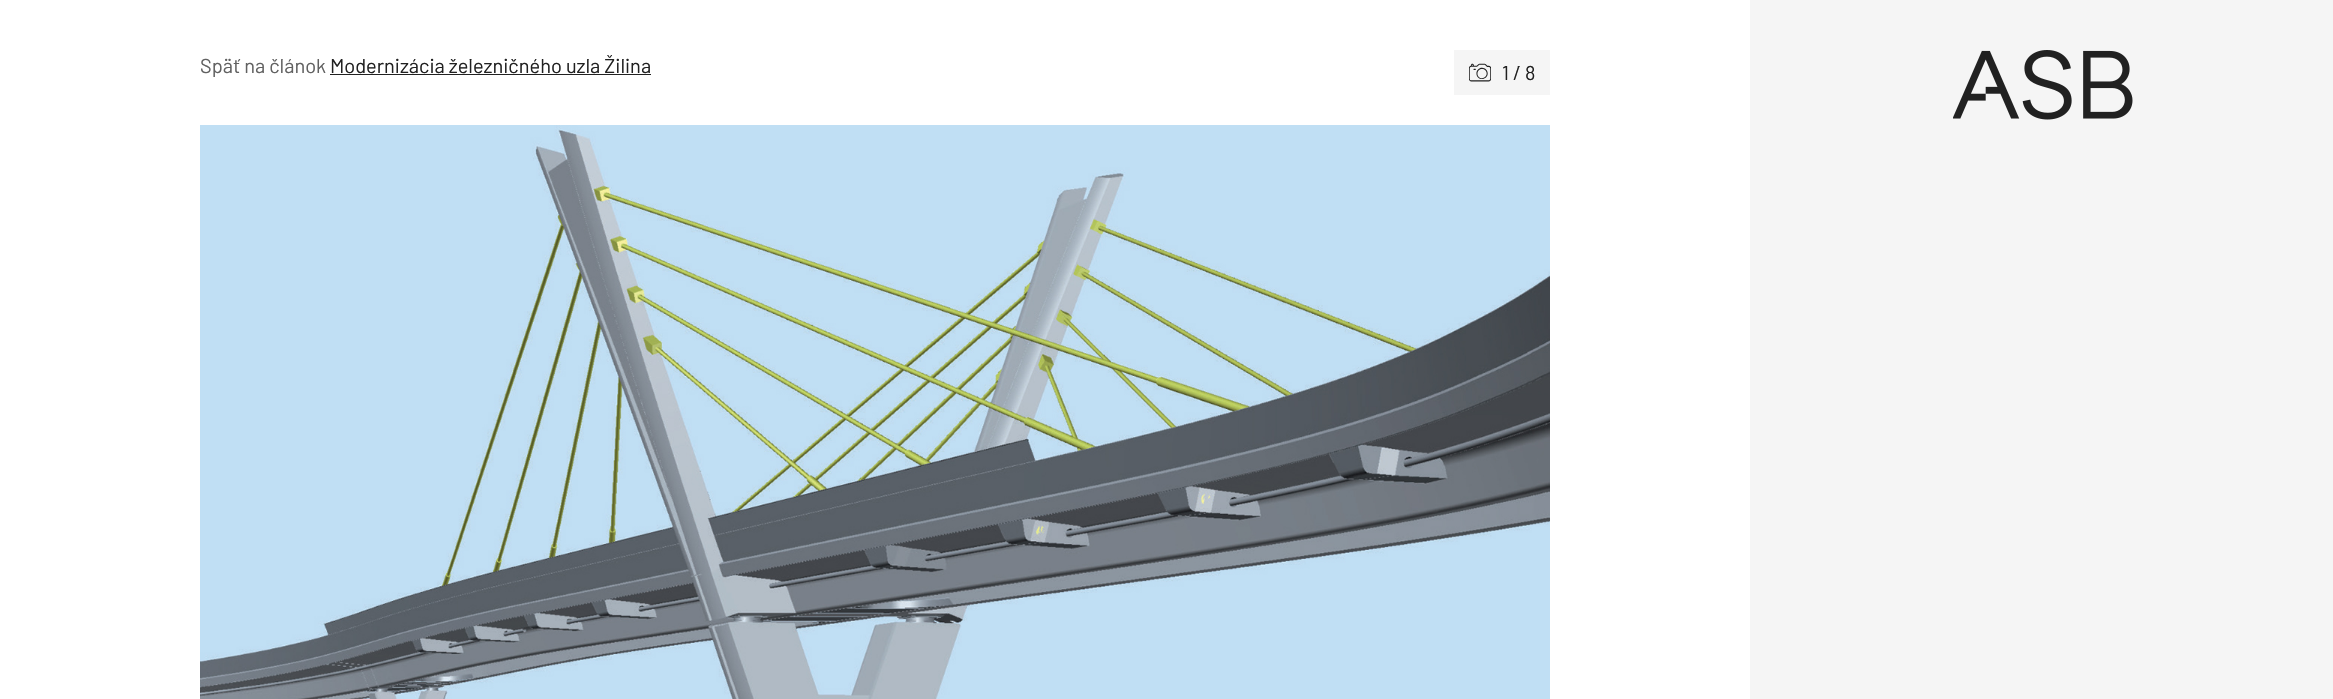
#include "include/core/SkBlurTypes.h"
#include "include/core/SkCanvas.h"
#include "include/core/SkData.h"
#include "include/core/SkFont.h"
#include "include/core/SkFontMgr.h"
#include "include/core/SkImage.h"
#include "include/core/SkMaskFilter.h"
#include "include/core/SkPaint.h"
#include "include/core/SkPathBuilder.h"
#include "include/core/SkTextBlob.h"
#include "include/effects/SkDashPathEffect.h"
#include "include/effects/SkGradientShader.h"
#include "include/utils/SkParsePath.h"

extern sk_sp<SkFontMgr> fontMgr;

void draw(SkCanvas* canvas) {
  SkPaint p;
  p.setAntiAlias(true);
  canvas->clear(SK_ColorWHITE);
  p.setColor(SkColorSetRGB(33, 33, 33));
  canvas->drawRect(SkRect::MakeLTRB(330, 74, 651, 75), p);
  p.setColor(SkColorSetRGB(245, 245, 245));
  canvas->drawRect(SkRect::MakeLTRB(1454, 50, 1550, 95), p);
  canvas->drawImageRect(SkImages::DeferredFromEncodedData(SkData::MakeFromFileName("images/1.png")), SkRect::MakeLTRB(1469, 63, 1491, 82), SkSamplingOptions());
  canvas->drawImageRect(SkImages::DeferredFromEncodedData(SkData::MakeFromFileName("images/2.png")), SkRect::MakeLTRB(200, 125, 1550, 699), SkSamplingOptions());
  canvas->drawRect(SkRect::MakeLTRB(1750, 0, 2333, 699), p);
  canvas->drawImageRect(SkImages::DeferredFromEncodedData(SkData::MakeFromFileName("images/3.png")), SkRect::MakeLTRB(1953, 50, 2133, 120), SkSamplingOptions());
  SkFont font1(fontMgr->matchFamilyStyle("Barlow", SkFontStyle::Normal()), 20);
  font1.setSubpixel(true);
  p.setColor(SkColorSetRGB(97, 97, 97));
  canvas->drawString("Späť na článok", 200, 73, font1, p);
  p.setColor(SkColorSetRGB(33, 33, 33));
  canvas->drawString("Modernizácia železničného uzla Žilina", 330, 73, font1, p);
  canvas->drawString("1 / 8", 1502, 80, font1, p);
}
